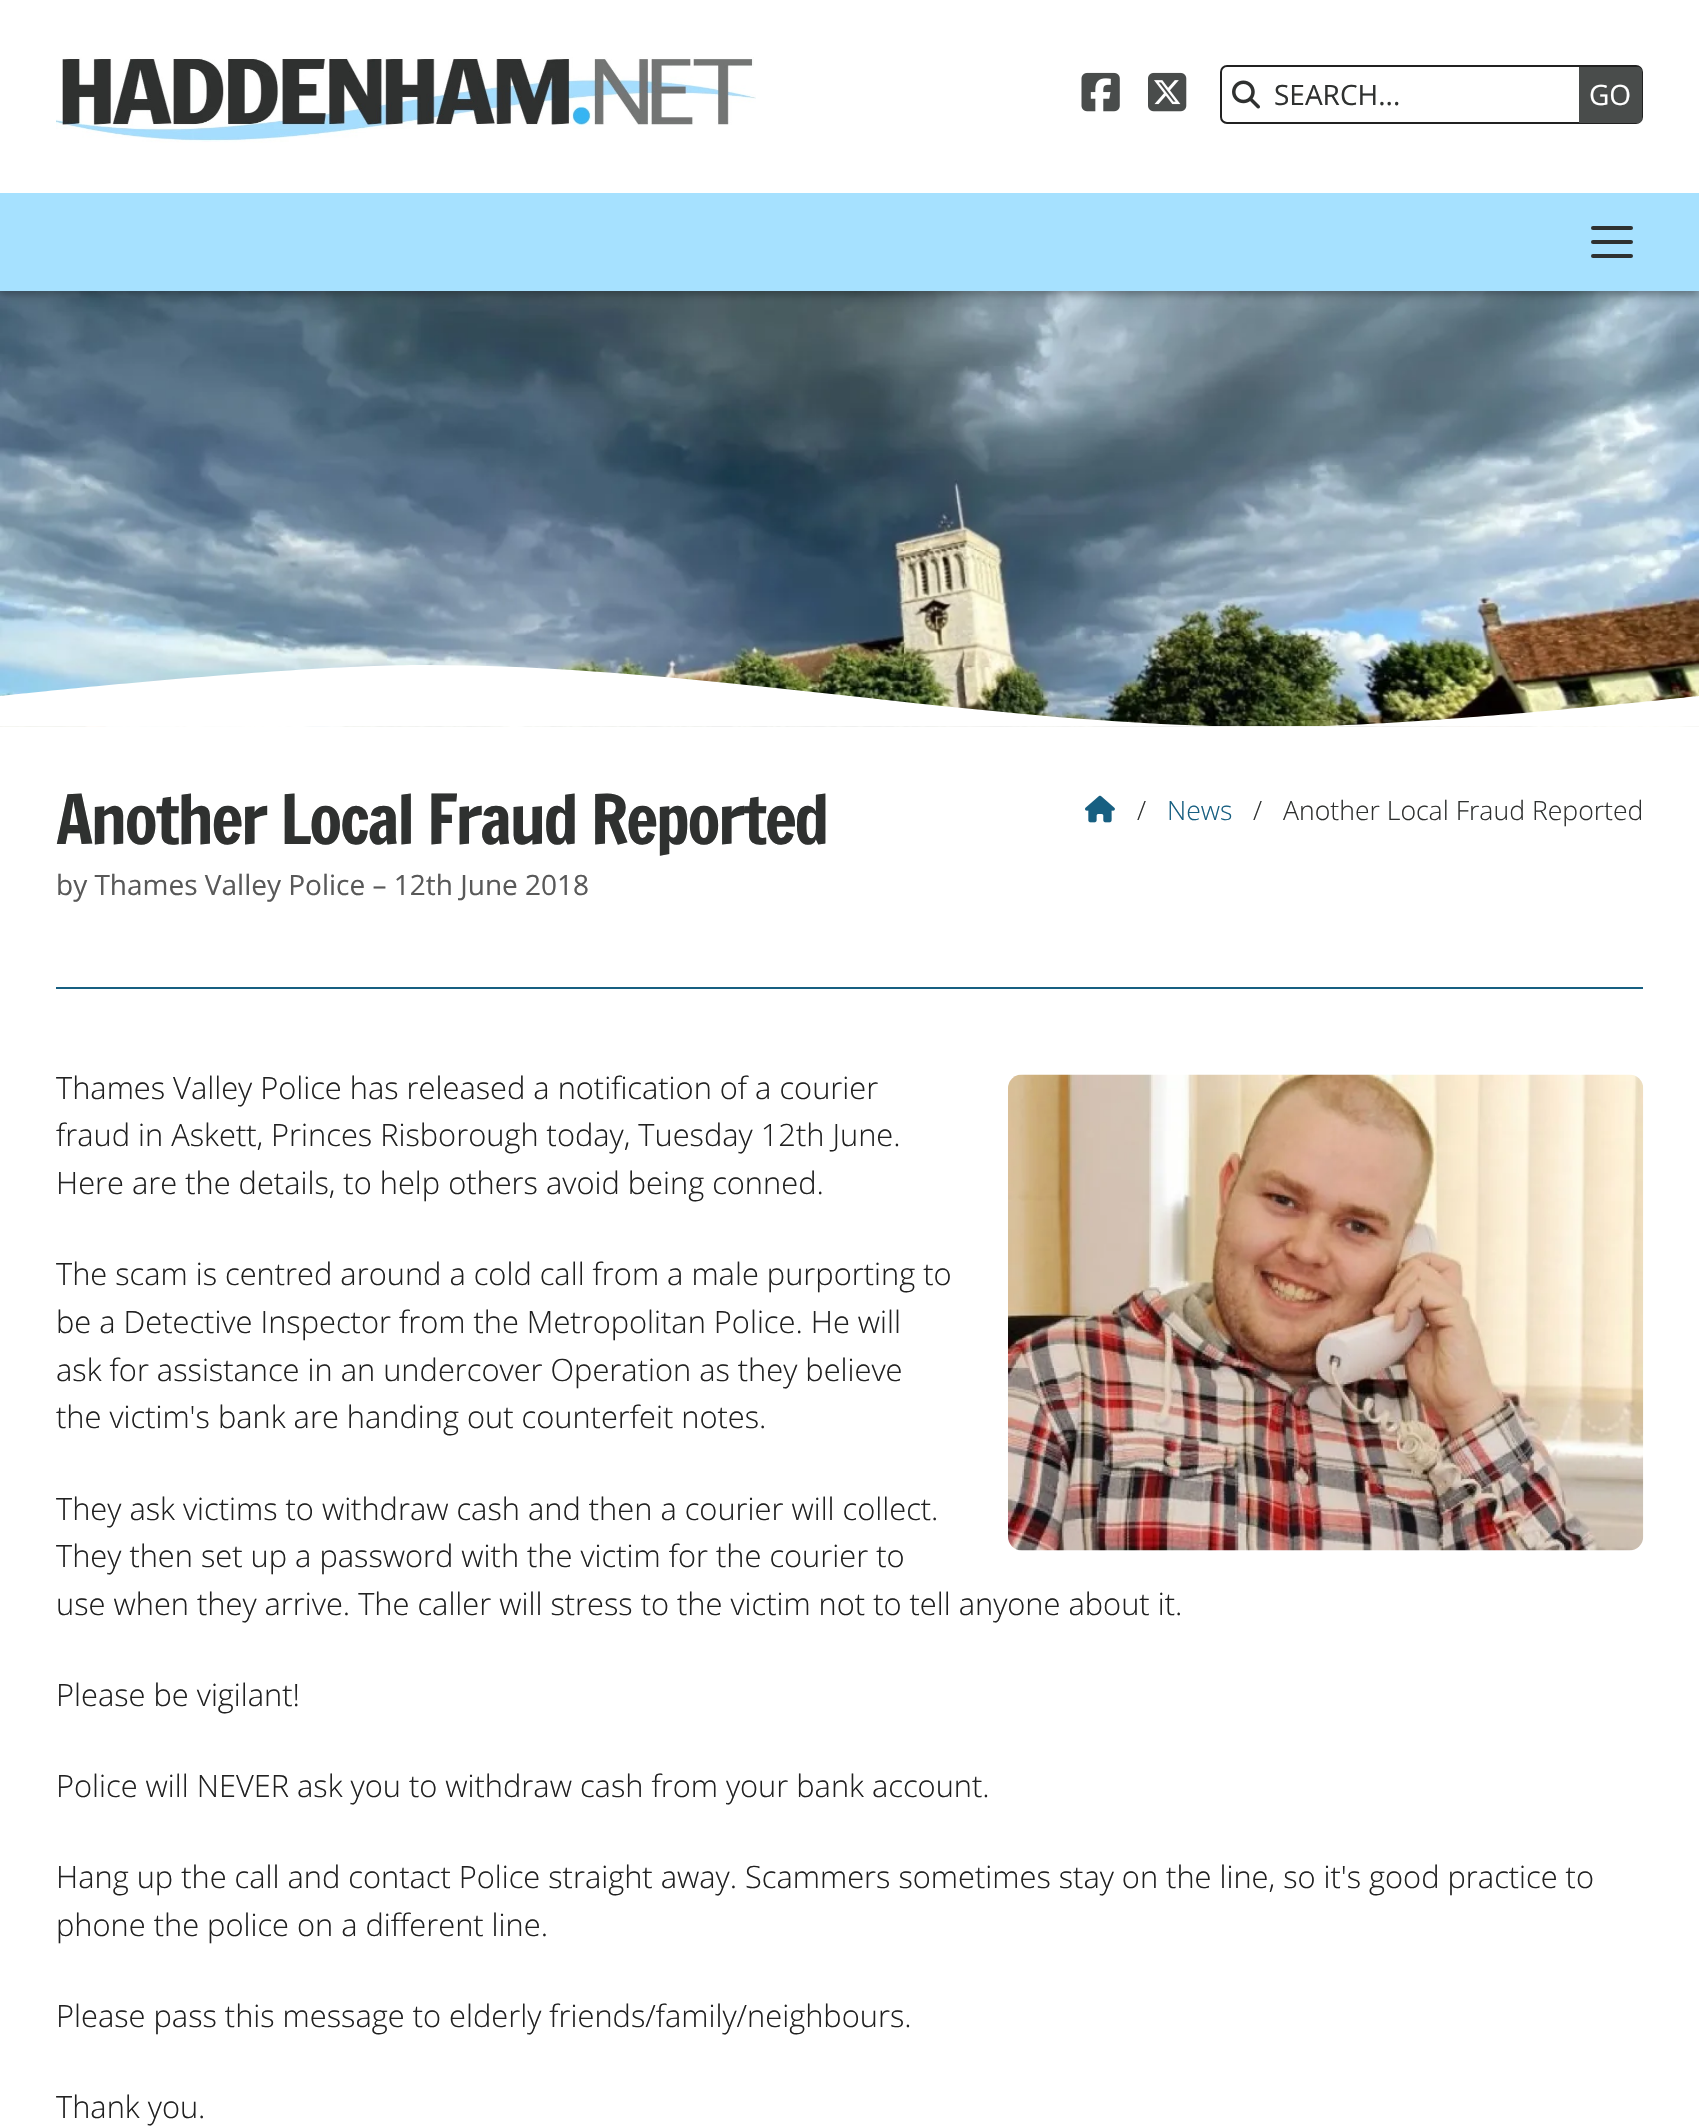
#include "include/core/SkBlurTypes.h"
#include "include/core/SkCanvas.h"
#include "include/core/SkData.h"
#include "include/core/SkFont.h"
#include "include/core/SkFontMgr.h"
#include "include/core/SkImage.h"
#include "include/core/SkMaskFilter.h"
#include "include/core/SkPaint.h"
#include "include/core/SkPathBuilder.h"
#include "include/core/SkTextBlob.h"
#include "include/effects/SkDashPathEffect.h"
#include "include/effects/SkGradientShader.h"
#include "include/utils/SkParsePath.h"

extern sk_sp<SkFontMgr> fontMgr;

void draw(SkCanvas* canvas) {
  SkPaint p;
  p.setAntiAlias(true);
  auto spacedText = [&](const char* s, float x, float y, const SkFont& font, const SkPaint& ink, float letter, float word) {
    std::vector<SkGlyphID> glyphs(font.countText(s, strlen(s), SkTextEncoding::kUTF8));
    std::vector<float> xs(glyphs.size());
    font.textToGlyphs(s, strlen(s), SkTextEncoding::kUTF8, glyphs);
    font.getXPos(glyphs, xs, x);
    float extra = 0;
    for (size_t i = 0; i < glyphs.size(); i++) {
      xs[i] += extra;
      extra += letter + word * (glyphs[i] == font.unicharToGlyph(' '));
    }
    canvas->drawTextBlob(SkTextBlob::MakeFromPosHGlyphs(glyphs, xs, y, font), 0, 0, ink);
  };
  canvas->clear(SK_ColorWHITE);
  canvas->drawImageRect(SkImages::DeferredFromEncodedData(SkData::MakeFromFileName("images/5.png")), SkRect::MakeLTRB(0, 291, 1699, 727), SkSamplingOptions());
  p.setColor(SkColorSetARGB(89, 0, 0, 0));
  p.setMaskFilter(SkMaskFilter::MakeBlur(kNormal_SkBlurStyle, 4.5f));
  canvas->drawRect(SkRect::MakeLTRB(-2, 4, 1698, 294), p);
  p.setMaskFilter(nullptr);
  p.setColor(SK_ColorWHITE);
  canvas->drawRect(SkRect::MakeLTRB(0, 0, 1699, 193), p);
  canvas->drawImageRect(SkImages::DeferredFromEncodedData(SkData::MakeFromFileName("images/1.png")), SkRect::MakeLTRB(56, 57, 756, 143), SkSamplingOptions());
  canvas->drawImageRect(SkImages::DeferredFromEncodedData(SkData::MakeFromFileName("images/2.png")), SkRect::MakeLTRB(1081, 72, 1120, 112), SkSamplingOptions());
  canvas->drawImageRect(SkImages::DeferredFromEncodedData(SkData::MakeFromFileName("images/3.png")), SkRect::MakeLTRB(1148, 72, 1187, 112), SkSamplingOptions());
  p.setStyle(SkPaint::kStroke_Style);
  p.setStrokeWidth(2);
  p.setColor(SkColorSetRGB(33, 33, 33));
  canvas->drawRoundRect(SkRect::MakeLTRB(1221, 66, 1642, 123), 6, 6, p);
  canvas->drawImageRect(SkImages::DeferredFromEncodedData(SkData::MakeFromFileName("images/4.png")), SkRect::MakeLTRB(1232, 80, 1260, 109), SkSamplingOptions());
  p.setStyle(SkPaint::kFill_Style);
  p.setColor(SkColorSetRGB(73, 76, 75));
  canvas->drawPath(SkPathBuilder().moveTo(1579, 67).lineTo(1638, 67).cubicTo(1640, 67, 1642, 69, 1642, 71).lineTo(1642, 119).cubicTo(1642, 121, 1640, 123, 1638, 123).lineTo(1579, 123).close().detach(), p);
  p.setColor(SkColorSetRGB(166, 225, 255));
  canvas->drawRect(SkRect::MakeLTRB(0, 193, 1699, 291), p);
  p.setColor(SkColorSetRGB(47, 49, 48));
  canvas->drawRoundRect(SkRect::MakeLTRB(1591, 226, 1633, 230), 2, 2, p);
  canvas->drawRoundRect(SkRect::MakeLTRB(1591, 240, 1633, 244), 2, 2, p);
  canvas->drawRoundRect(SkRect::MakeLTRB(1591, 254, 1633, 258), 2, 2, p);
  canvas->save();
  canvas->clipRect(SkRect::MakeLTRB(0, 665, 1699, 726));
  p.setColor(SK_ColorWHITE);
  canvas->drawPath(SkPathBuilder().moveTo(0, 696).cubicTo(0, 696, 283, 665, 425, 665).cubicTo(709, 665, 990, 727, 1274, 727).cubicTo(1417, 727, 1699, 696, 1699, 696).lineTo(1699, 727).lineTo(0, 727).close().detach(), p);
  canvas->restore();
  p.setColor(SkColorSetRGB(23, 95, 129));
  canvas->drawRect(SkRect::MakeLTRB(56, 987, 1643, 989), p);
  canvas->drawImageRect(SkImages::DeferredFromEncodedData(SkData::MakeFromFileName("images/6.png")), SkRect::MakeLTRB(1085, 795, 1115, 823), SkSamplingOptions());
  canvas->drawImageRect(SkImages::DeferredFromEncodedData(SkData::MakeFromFileName("images/7.png")), SkRect::MakeLTRB(1008, 1074, 1644, 1551), SkSamplingOptions());
  SkFont font1(fontMgr->matchFamilyStyle("Open Sans", SkFontStyle::Normal()), 28);
  font1.setSubpixel(true);
  p.setColor(SkColorSetRGB(47, 49, 48));
  canvas->drawString("SEARCH...", 1274, 105, font1, p);
  p.setColor(SK_ColorWHITE);
  canvas->drawString("GO", 1589, 105, font1, p);
  SkFont font2(fontMgr->matchFamilyStyle("Francois One", SkFontStyle::Normal()), 67.25f);
  font2.setSubpixel(true);
  p.setColor(SkColorSetRGB(47, 49, 48));
  spacedText("Another Local Fraud Reported", 56, 844, font2, p, -2.25f, 0);
  SkFont font3(fontMgr->matchFamilyStyle("Open Sans", SkFontStyle(300, SkFontStyle::kNormal_Width, SkFontStyle::kUpright_Slant)), 26.6f);
  font3.setSubpixel(true);
  canvas->drawString("/", 1137, 820, font3, p);
  p.setColor(SkColorSetRGB(23, 95, 129));
  canvas->drawString("News", 1167, 820, font3, p);
  p.setColor(SkColorSetRGB(47, 49, 48));
  canvas->drawString("/", 1253, 820, font3, p);
  canvas->drawString("Another Local Fraud Reported", 1283, 820, font3, p);
  p.setColor(SkColorSetRGB(89, 89, 89));
  canvas->drawString("by Thames Valley Police – 12th June 2018", 56, 895, font1, p);
  SkFont font4(fontMgr->matchFamilyStyle("Open Sans", SkFontStyle(300, SkFontStyle::kNormal_Width, SkFontStyle::kUpright_Slant)), 30.8f);
  font4.setSubpixel(true);
  p.setColor(SkColorSetRGB(33, 33, 33));
  canvas->drawString("Thames Valley Police has released a notification of a courier", 56, 1099, font4, p);
  canvas->drawString("fraud in Askett, Princes Risborough today, Tuesday 12th June.", 56, 1146, font4, p);
  canvas->drawString("Here are the details, to help others avoid being conned.", 56, 1194, font4, p);
  canvas->drawString("The scam is centred around a cold call from a male purporting to", 56, 1285, font4, p);
  canvas->drawString("be a Detective Inspector from the Metropolitan Police. He will", 56, 1333, font4, p);
  canvas->drawString("ask for assistance in an undercover Operation as they believe", 56, 1381, font4, p);
  canvas->drawString("the victim's bank are handing out counterfeit notes.", 56, 1428, font4, p);
  canvas->drawString("They ask victims to withdraw cash and then a courier will collect.", 56, 1520, font4, p);
  canvas->drawString("They then set up a password with the victim for the courier to", 56, 1567, font4, p);
  canvas->drawString("use when they arrive. The caller will stress to the victim not to tell anyone about it.", 56, 1615, font4, p);
  canvas->drawString("Please be vigilant!", 56, 1706, font4, p);
  canvas->drawString("Police will NEVER ask you to withdraw cash from your bank account.", 56, 1797, font4, p);
  canvas->drawString("Hang up the call and contact Police straight away. Scammers sometimes stay on the line, so it's good practice to", 56, 1888, font4, p);
  canvas->drawString("phone the police on a different line.", 56, 1936, font4, p);
  canvas->drawString("Please pass this message to elderly friends/family/neighbours.", 56, 2027, font4, p);
  canvas->drawString("Thank you.", 56, 2118, font4, p);
}
